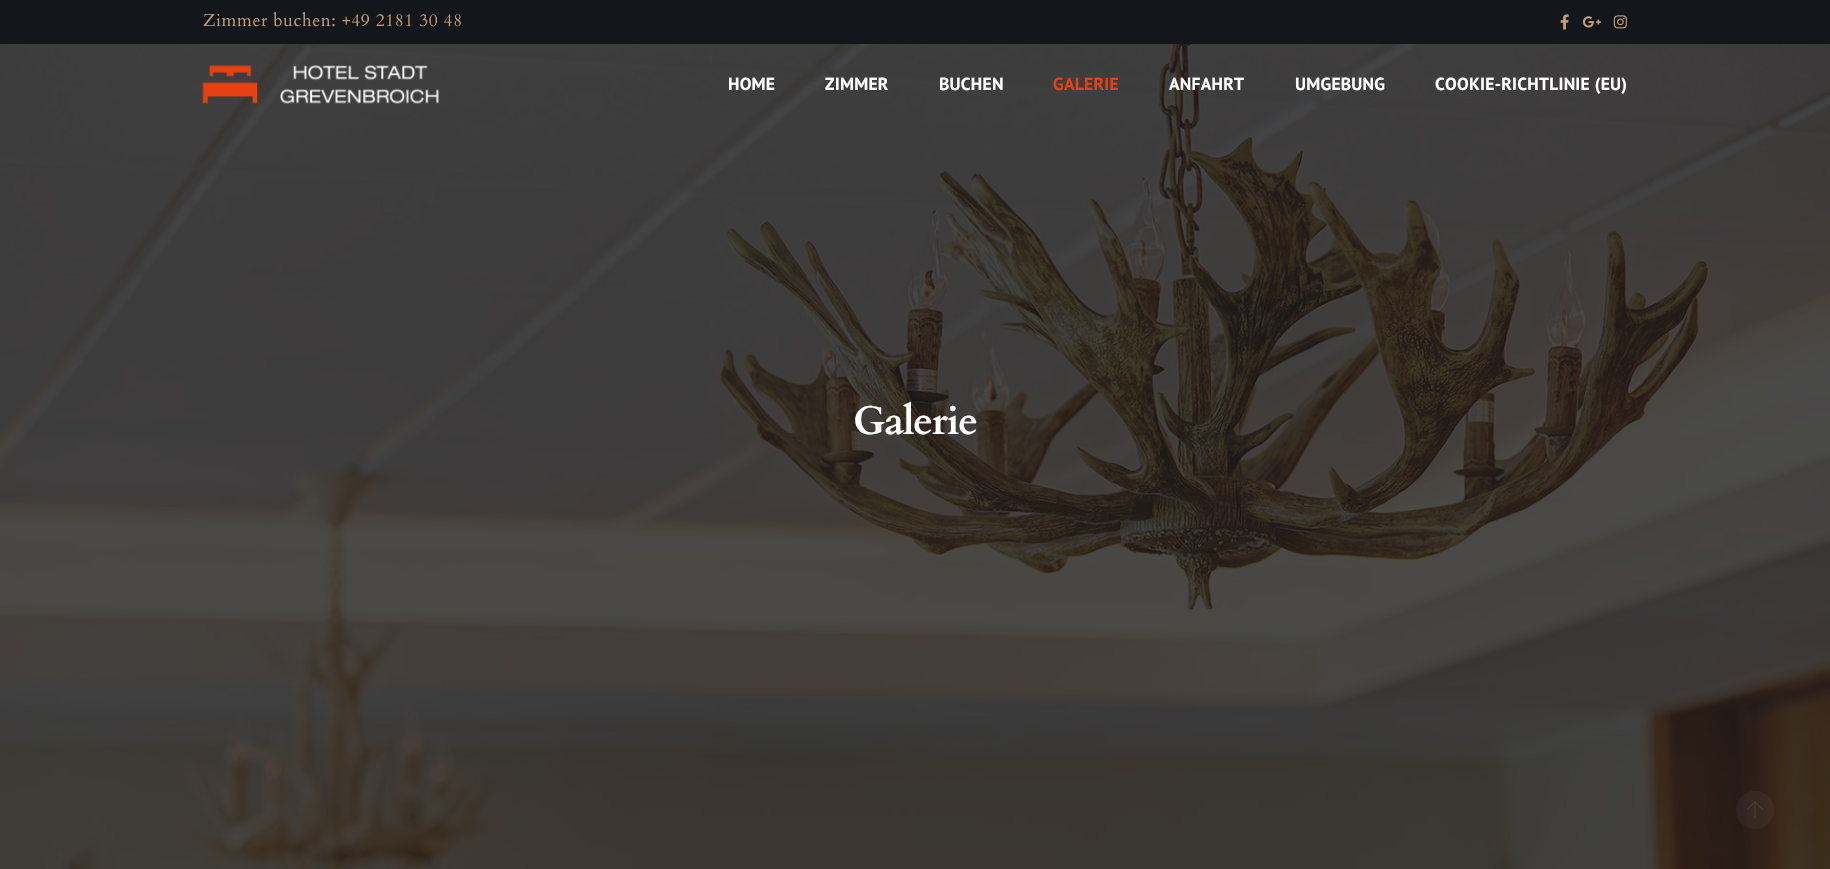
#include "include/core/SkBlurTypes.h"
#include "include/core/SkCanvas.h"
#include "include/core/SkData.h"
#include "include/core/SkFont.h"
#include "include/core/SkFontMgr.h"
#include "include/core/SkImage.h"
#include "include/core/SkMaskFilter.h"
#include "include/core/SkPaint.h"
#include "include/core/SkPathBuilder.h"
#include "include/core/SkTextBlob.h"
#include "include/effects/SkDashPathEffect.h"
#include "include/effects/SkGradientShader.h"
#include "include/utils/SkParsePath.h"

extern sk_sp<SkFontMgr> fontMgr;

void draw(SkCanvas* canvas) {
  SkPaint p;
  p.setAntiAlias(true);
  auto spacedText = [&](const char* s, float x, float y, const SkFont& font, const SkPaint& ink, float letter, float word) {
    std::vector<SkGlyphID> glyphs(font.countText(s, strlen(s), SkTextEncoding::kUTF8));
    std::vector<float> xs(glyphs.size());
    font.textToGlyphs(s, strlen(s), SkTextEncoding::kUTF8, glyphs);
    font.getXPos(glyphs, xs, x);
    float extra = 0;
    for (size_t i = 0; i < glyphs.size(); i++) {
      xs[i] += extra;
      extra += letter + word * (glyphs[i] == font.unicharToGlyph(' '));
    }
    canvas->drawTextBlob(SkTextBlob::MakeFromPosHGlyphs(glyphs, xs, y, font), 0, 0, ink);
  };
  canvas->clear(SK_ColorWHITE);
  p.setColor(SkColorSetRGB(19, 22, 27));
  canvas->drawRect(SkRect::MakeLTRB(0, 0, 1830, 44), p);
  canvas->drawImageRect(SkImages::DeferredFromEncodedData(SkData::MakeFromFileName("images/1.png")), SkRect::MakeLTRB(1560, 14, 1569, 30), SkSamplingOptions());
  canvas->drawImageRect(SkImages::DeferredFromEncodedData(SkData::MakeFromFileName("images/2.png")), SkRect::MakeLTRB(1582, 16, 1601, 28), SkSamplingOptions());
  canvas->drawImageRect(SkImages::DeferredFromEncodedData(SkData::MakeFromFileName("images/3.png")), SkRect::MakeLTRB(1613, 15, 1627, 29), SkSamplingOptions());
  canvas->drawImageRect(SkImages::DeferredFromEncodedData(SkData::MakeFromFileName("images/5.png")), SkRect::MakeLTRB(0, 44, 1830, 869), SkSamplingOptions());
  canvas->drawImageRect(SkImages::DeferredFromEncodedData(SkData::MakeFromFileName("images/4.png")), SkRect::MakeLTRB(202, 65, 439, 104), SkSamplingOptions());
  p.setColor(SkColorSetARGB(20, 135, 135, 135));
  canvas->drawCircle(1755, 810, 19, p);
  canvas->drawImageRect(SkImages::DeferredFromEncodedData(SkData::MakeFromFileName("images/6.png")), SkRect::MakeLTRB(1746, 801, 1764, 819), SkSamplingOptions());
  SkFont font1(fontMgr->matchFamilyStyle("Cardo", SkFontStyle::Normal()), 17.5f);
  font1.setSubpixel(true);
  p.setColor(SkColorSetRGB(193, 155, 118));
  spacedText("Zimmer buchen: +49 2181 30 48", 203, 26, font1, p, 0.6f, 0);
  SkFont font2(fontMgr->matchFamilyStyle("PT Sans", SkFontStyle::Bold()), 17.5f);
  font2.setSubpixel(true);
  p.setColor(SK_ColorWHITE);
  spacedText("HOME", 728, 90, font2, p, 0.25f, 0);
  spacedText("ZIMMER", 825, 90, font2, p, 0.25f, 0);
  spacedText("BUCHEN", 939, 90, font2, p, 0.25f, 0);
  p.setColor(SkColorSetRGB(231, 65, 17));
  spacedText("GALERIE", 1053, 90, font2, p, 0.25f, 0);
  p.setColor(SK_ColorWHITE);
  spacedText("ANFAHRT", 1169, 90, font2, p, 0.25f, 0);
  spacedText("UMGEBUNG", 1295, 90, font2, p, 0.25f, 0);
  spacedText("COOKIE-RICHTLINIE (EU)", 1435, 90, font2, p, 0.25f, 0);
  SkFont font3(fontMgr->matchFamilyStyle("Cardo", SkFontStyle::Bold()), 40);
  font3.setSubpixel(true);
  spacedText("Galerie", 853, 434, font3, p, -1.25f, 0);
}
